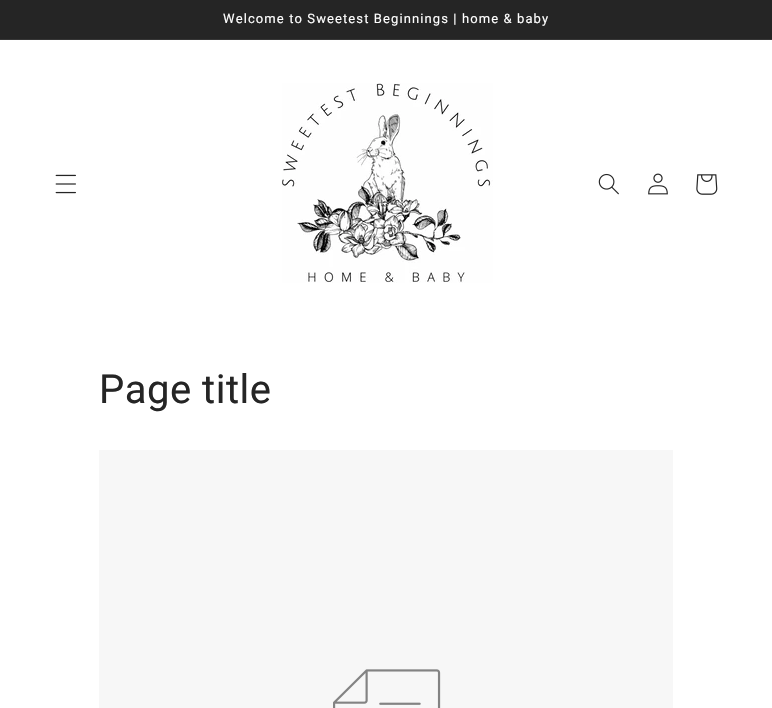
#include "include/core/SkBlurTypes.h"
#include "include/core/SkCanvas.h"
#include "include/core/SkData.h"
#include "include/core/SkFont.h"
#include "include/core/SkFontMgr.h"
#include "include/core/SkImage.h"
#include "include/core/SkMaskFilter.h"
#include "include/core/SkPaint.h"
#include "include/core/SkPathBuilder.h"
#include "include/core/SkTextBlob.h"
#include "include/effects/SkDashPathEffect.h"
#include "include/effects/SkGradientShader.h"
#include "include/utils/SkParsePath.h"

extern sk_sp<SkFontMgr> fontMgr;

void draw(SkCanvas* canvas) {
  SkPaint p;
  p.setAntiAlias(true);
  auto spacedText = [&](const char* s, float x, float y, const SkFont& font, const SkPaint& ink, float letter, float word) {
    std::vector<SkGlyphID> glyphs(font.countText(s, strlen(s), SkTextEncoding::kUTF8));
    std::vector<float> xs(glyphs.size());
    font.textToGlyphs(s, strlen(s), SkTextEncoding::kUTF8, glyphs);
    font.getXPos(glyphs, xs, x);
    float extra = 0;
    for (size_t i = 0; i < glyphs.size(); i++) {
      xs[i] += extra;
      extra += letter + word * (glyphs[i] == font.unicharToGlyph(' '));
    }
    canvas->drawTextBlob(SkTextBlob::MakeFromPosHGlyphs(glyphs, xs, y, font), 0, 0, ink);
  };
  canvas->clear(SK_ColorWHITE);
  p.setColor(SkColorSetRGB(37, 37, 37));
  canvas->drawRect(SkRect::MakeLTRB(0, 0, 772, 39), p);
  p.setColor(SkColorSetRGB(54, 54, 54));
  canvas->drawRect(SkRect::MakeLTRB(0, 39, 772, 40), p);
  canvas->drawImageRect(SkImages::DeferredFromEncodedData(SkData::MakeFromFileName("images/1.png")), SkRect::MakeLTRB(55, 174, 76, 194), SkSamplingOptions());
  canvas->drawImageRect(SkImages::DeferredFromEncodedData(SkData::MakeFromFileName("images/2.png")), SkRect::MakeLTRB(282, 83, 493, 283), SkSamplingOptions());
  canvas->drawImageRect(SkImages::DeferredFromEncodedData(SkData::MakeFromFileName("images/3.png")), SkRect::MakeLTRB(598, 173, 619, 195), SkSamplingOptions());
  canvas->drawImageRect(SkImages::DeferredFromEncodedData(SkData::MakeFromFileName("images/4.png")), SkRect::MakeLTRB(648, 173, 668, 195), SkSamplingOptions());
  canvas->drawImageRect(SkImages::DeferredFromEncodedData(SkData::MakeFromFileName("images/5.png")), SkRect::MakeLTRB(696, 174, 718, 195), SkSamplingOptions());
  p.setColor(SkColorSetRGB(247, 247, 247));
  canvas->drawRect(SkRect::MakeLTRB(99, 450, 673, 708), p);
  canvas->drawImageRect(SkImages::DeferredFromEncodedData(SkData::MakeFromFileName("images/6.png")), SkRect::MakeLTRB(333, 669, 441, 708), SkSamplingOptions());
  SkFont font1(fontMgr->matchFamilyStyle("Roboto", SkFontStyle::Normal()), 13);
  font1.setSubpixel(true);
  p.setColor(SK_ColorWHITE);
  spacedText("Welcome to Sweetest Beginnings | home & baby", 223, 23, font1, p, 1.1f, 0);
  SkFont font2(fontMgr->matchFamilyStyle("Roboto", SkFontStyle::Normal()), 40);
  font2.setSubpixel(true);
  p.setColor(SkColorSetRGB(37, 37, 37));
  spacedText("Page title", 99, 403, font2, p, 0.5f, 0);
}
